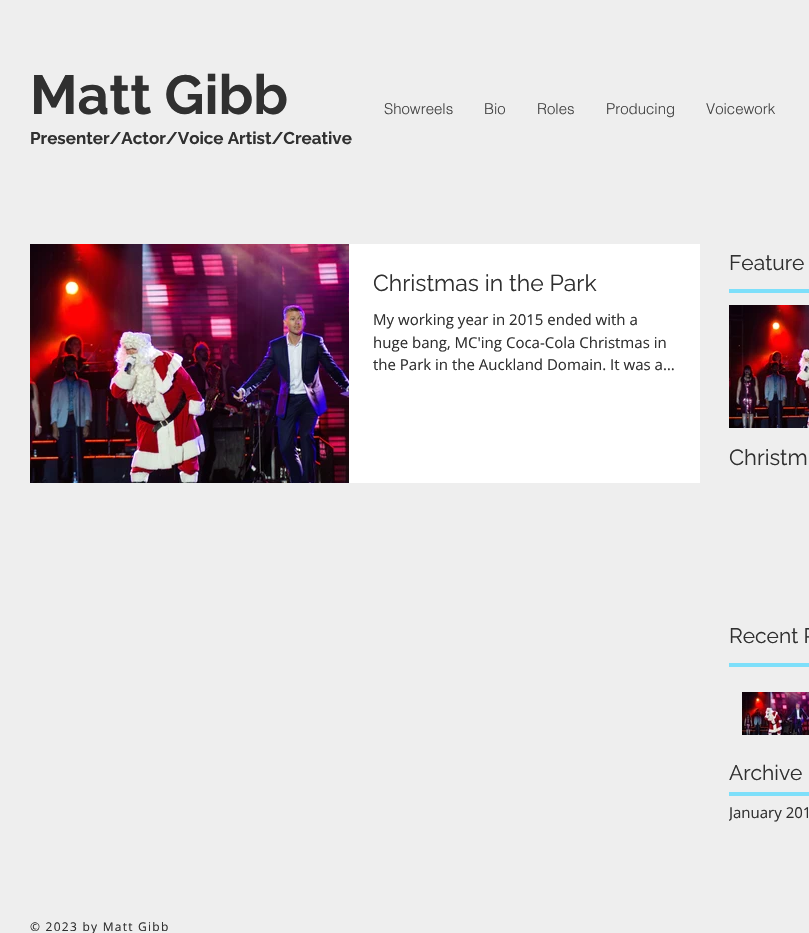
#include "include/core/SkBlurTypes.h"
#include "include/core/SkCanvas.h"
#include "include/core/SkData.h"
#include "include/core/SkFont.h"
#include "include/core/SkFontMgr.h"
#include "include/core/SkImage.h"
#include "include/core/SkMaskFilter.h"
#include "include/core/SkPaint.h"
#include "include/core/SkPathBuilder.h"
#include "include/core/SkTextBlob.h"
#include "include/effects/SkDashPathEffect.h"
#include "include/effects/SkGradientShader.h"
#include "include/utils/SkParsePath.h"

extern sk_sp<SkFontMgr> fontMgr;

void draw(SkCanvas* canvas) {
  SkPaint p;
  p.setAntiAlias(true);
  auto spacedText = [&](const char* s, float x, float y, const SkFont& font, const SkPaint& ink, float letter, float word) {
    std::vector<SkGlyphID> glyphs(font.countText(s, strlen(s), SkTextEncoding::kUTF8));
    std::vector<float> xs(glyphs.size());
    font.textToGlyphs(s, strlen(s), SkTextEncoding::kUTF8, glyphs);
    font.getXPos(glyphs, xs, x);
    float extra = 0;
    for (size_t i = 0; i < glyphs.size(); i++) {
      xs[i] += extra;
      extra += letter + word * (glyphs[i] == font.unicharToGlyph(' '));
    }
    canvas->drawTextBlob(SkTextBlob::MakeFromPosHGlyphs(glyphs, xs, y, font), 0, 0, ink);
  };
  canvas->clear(SkColorSetRGB(238, 238, 238));
  canvas->drawImageRect(SkImages::DeferredFromEncodedData(SkData::MakeFromFileName("images/1.png")), SkRect::MakeLTRB(30, 244, 349, 483), SkSamplingOptions());
  p.setColor(SK_ColorWHITE);
  canvas->drawRect(SkRect::MakeLTRB(349, 244, 700, 483), p);
  p.setColor(SkColorSetRGB(125, 223, 250));
  canvas->drawRect(SkRect::MakeLTRB(729, 289, 809, 293), p);
  canvas->drawImageRect(SkImages::DeferredFromEncodedData(SkData::MakeFromFileName("images/2.png")), SkRect::MakeLTRB(729, 305, 809, 428), SkSamplingOptions());
  canvas->drawRect(SkRect::MakeLTRB(729, 663, 809, 667), p);
  canvas->drawImageRect(SkImages::DeferredFromEncodedData(SkData::MakeFromFileName("images/3.png")), SkRect::MakeLTRB(742, 692, 809, 735), SkSamplingOptions());
  canvas->drawRect(SkRect::MakeLTRB(729, 792, 809, 796), p);
  SkFont font1(fontMgr->matchFamilyStyle("Raleway", SkFontStyle::Bold()), 55);
  font1.setSubpixel(true);
  p.setColor(SkColorSetRGB(48, 48, 48));
  canvas->drawString("Matt Gibb", 30, 114, font1, p);
  SkFont font2(fontMgr->matchFamilyStyle("Raleway", SkFontStyle::Bold()), 17);
  font2.setSubpixel(true);
  canvas->drawString("Presenter/Actor/Voice Artist/Creative", 30, 144, font2, p);
  SkFont font3(fontMgr->matchFamilyStyle("helvetica", SkFontStyle(300, SkFontStyle::kNormal_Width, SkFontStyle::kUpright_Slant)), 15);
  font3.setSubpixel(true);
  p.setColor(SkColorSetRGB(68, 68, 68));
  canvas->drawString("Showreels", 384, 114, font3, p);
  canvas->drawString("Bio", 484, 114, font3, p);
  canvas->drawString("Roles", 537, 114, font3, p);
  canvas->drawString("Producing", 606, 114, font3, p);
  canvas->drawString("Voicework", 706, 114, font3, p);
  SkFont font4(fontMgr->matchFamilyStyle("Raleway", SkFontStyle::Normal()), 21);
  font4.setSubpixel(true);
  p.setColor(SkColorSetRGB(48, 48, 48));
  canvas->drawString("Feature", 729, 270, font4, p);
  SkFont font5(fontMgr->matchFamilyStyle("Raleway", SkFontStyle::Normal()), 23);
  font5.setSubpixel(true);
  canvas->drawString("Christmas in the Park", 373, 291, font5, p);
  SkFont font6(fontMgr->matchFamilyStyle("Open Sans", SkFontStyle::Normal()), 15);
  font6.setSubpixel(true);
  canvas->drawString("My working year in 2015 ended with a", 373, 325, font6, p);
  canvas->drawString("huge bang, MC'ing Coca-Cola Christmas in", 373, 348, font6, p);
  canvas->drawString("the Park in the Auckland Domain. It was a…", 373, 370, font6, p);
  SkFont font7(fontMgr->matchFamilyStyle("Raleway", SkFontStyle::Normal()), 22);
  font7.setSubpixel(true);
  canvas->drawString("Christm", 729, 465, font7, p);
  canvas->drawString("Recent P", 729, 643, font4, p);
  canvas->drawString("Archive", 729, 780, font4, p);
  canvas->save();
  canvas->clipRect(SkRect::MakeLTRB(729, 801, 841, 823));
  canvas->drawString("January 201", 729, 818, font6, p);
  canvas->restore();
  SkFont font8(fontMgr->matchFamilyStyle("Open Sans", SkFontStyle::Normal()), 12);
  font8.setSubpixel(true);
  spacedText("© 2023 by Matt Gibb", 30, 931, font8, p, 1.25f, 0);
}
